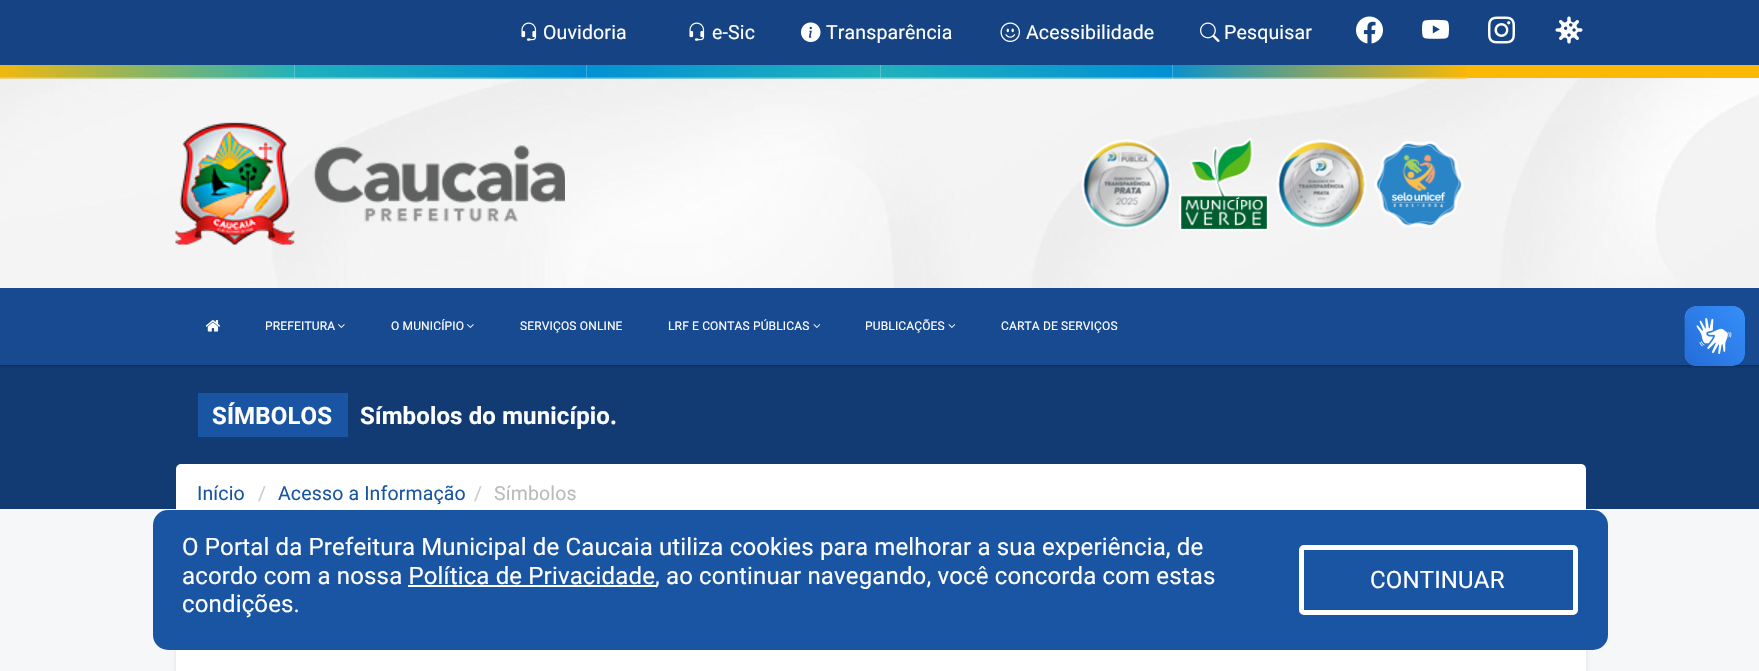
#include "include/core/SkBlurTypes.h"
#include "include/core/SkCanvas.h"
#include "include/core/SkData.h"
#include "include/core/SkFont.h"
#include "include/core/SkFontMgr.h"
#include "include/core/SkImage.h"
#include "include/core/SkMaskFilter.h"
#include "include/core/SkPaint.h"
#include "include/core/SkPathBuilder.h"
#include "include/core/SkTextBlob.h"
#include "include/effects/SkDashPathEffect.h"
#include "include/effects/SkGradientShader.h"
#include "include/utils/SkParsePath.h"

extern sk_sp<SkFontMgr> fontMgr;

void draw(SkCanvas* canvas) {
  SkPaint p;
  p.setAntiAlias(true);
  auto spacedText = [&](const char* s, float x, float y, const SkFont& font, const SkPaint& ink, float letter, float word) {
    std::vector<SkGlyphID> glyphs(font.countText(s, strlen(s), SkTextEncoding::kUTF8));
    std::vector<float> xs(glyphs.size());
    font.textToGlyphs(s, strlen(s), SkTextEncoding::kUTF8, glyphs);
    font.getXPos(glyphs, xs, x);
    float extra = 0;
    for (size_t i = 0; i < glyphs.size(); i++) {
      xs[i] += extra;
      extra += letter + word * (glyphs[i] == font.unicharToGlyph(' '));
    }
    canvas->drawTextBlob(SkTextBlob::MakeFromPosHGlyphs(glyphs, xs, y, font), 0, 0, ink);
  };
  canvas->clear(SkColorSetRGB(246, 247, 248));
  p.setColor(SkColorSetARGB(23, 3, 0, 71));
  p.setMaskFilter(SkMaskFilter::MakeBlur(kNormal_SkBlurStyle, 2));
  canvas->drawRect(SkRect::MakeLTRB(176, 465, 1586, 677), p);
  p.setMaskFilter(nullptr);
  p.setColor(SkColorSetRGB(18, 59, 116));
  canvas->drawRect(SkRect::MakeLTRB(0, 365, 1759, 509), p);
  p.setColor(SkColorSetARGB(77, 0, 0, 0));
  p.setMaskFilter(SkMaskFilter::MakeBlur(kNormal_SkBlurStyle, 1.5f));
  canvas->drawRect(SkRect::MakeLTRB(0, 2, 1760, 366), p);
  p.setMaskFilter(nullptr);
  canvas->drawImageRect(SkImages::DeferredFromEncodedData(SkData::MakeFromFileName("images/1.png")), SkRect::MakeLTRB(0, 65, 1759, 288), SkSamplingOptions());
  p.setColor(SkColorSetRGB(21, 67, 131));
  canvas->drawRect(SkRect::MakeLTRB(0, 0, 1759, 65), p);
  canvas->drawImageRect(SkImages::DeferredFromEncodedData(SkData::MakeFromFileName("images/2.png")), SkRect::MakeLTRB(521, 22, 537, 41), SkSamplingOptions());
  canvas->drawImageRect(SkImages::DeferredFromEncodedData(SkData::MakeFromFileName("images/2.png")), SkRect::MakeLTRB(689, 22, 705, 41), SkSamplingOptions());
  canvas->drawImageRect(SkImages::DeferredFromEncodedData(SkData::MakeFromFileName("images/3.png")), SkRect::MakeLTRB(801, 22, 821, 42), SkSamplingOptions());
  canvas->drawImageRect(SkImages::DeferredFromEncodedData(SkData::MakeFromFileName("images/4.png")), SkRect::MakeLTRB(1000, 22, 1020, 42), SkSamplingOptions());
  canvas->drawImageRect(SkImages::DeferredFromEncodedData(SkData::MakeFromFileName("images/5.png")), SkRect::MakeLTRB(1200, 22, 1220, 42), SkSamplingOptions());
  canvas->drawImageRect(SkImages::DeferredFromEncodedData(SkData::MakeFromFileName("images/6.png")), SkRect::MakeLTRB(1356, 16, 1383, 44), SkSamplingOptions());
  canvas->drawImageRect(SkImages::DeferredFromEncodedData(SkData::MakeFromFileName("images/7.png")), SkRect::MakeLTRB(1422, 19, 1449, 39), SkSamplingOptions());
  canvas->drawImageRect(SkImages::DeferredFromEncodedData(SkData::MakeFromFileName("images/8.png")), SkRect::MakeLTRB(1488, 16, 1515, 44), SkSamplingOptions());
  canvas->drawImageRect(SkImages::DeferredFromEncodedData(SkData::MakeFromFileName("images/9.png")), SkRect::MakeLTRB(1555, 16, 1583, 44), SkSamplingOptions());
  canvas->drawImageRect(SkImages::DeferredFromEncodedData(SkData::MakeFromFileName("images/10.png")), SkRect::MakeLTRB(0, 65, 294, 79), SkSamplingOptions());
  canvas->drawImageRect(SkImages::DeferredFromEncodedData(SkData::MakeFromFileName("images/11.png")), SkRect::MakeLTRB(293, 65, 587, 79), SkSamplingOptions());
  canvas->drawImageRect(SkImages::DeferredFromEncodedData(SkData::MakeFromFileName("images/12.png")), SkRect::MakeLTRB(586, 65, 881, 79), SkSamplingOptions());
  canvas->drawImageRect(SkImages::DeferredFromEncodedData(SkData::MakeFromFileName("images/13.png")), SkRect::MakeLTRB(880, 65, 1173, 79), SkSamplingOptions());
  canvas->drawImageRect(SkImages::DeferredFromEncodedData(SkData::MakeFromFileName("images/14.png")), SkRect::MakeLTRB(1173, 65, 1467, 79), SkSamplingOptions());
  p.setColor(SkColorSetRGB(251, 184, 5));
  canvas->drawRect(SkRect::MakeLTRB(1467, 65, 1759, 78), p);
  canvas->drawImageRect(SkImages::DeferredFromEncodedData(SkData::MakeFromFileName("images/15.png")), SkRect::MakeLTRB(175, 122, 565, 245), SkSamplingOptions());
  canvas->drawImageRect(SkImages::DeferredFromEncodedData(SkData::MakeFromFileName("images/16.png")), SkRect::MakeLTRB(1081, 139, 1172, 230), SkSamplingOptions());
  canvas->drawImageRect(SkImages::DeferredFromEncodedData(SkData::MakeFromFileName("images/17.png")), SkRect::MakeLTRB(1179, 138, 1269, 231), SkSamplingOptions());
  canvas->drawImageRect(SkImages::DeferredFromEncodedData(SkData::MakeFromFileName("images/18.png")), SkRect::MakeLTRB(1276, 139, 1367, 230), SkSamplingOptions());
  canvas->drawImageRect(SkImages::DeferredFromEncodedData(SkData::MakeFromFileName("images/19.png")), SkRect::MakeLTRB(1374, 141, 1464, 228), SkSamplingOptions());
  p.setColor(SkColorSetRGB(23, 74, 145));
  canvas->drawRect(SkRect::MakeLTRB(0, 288, 1759, 365), p);
  canvas->drawImageRect(SkImages::DeferredFromEncodedData(SkData::MakeFromFileName("images/20.png")), SkRect::MakeLTRB(205, 320, 221, 332), SkSamplingOptions());
  canvas->drawImageRect(SkImages::DeferredFromEncodedData(SkData::MakeFromFileName("images/21.png")), SkRect::MakeLTRB(338, 324, 345, 328), SkSamplingOptions());
  canvas->drawImageRect(SkImages::DeferredFromEncodedData(SkData::MakeFromFileName("images/21.png")), SkRect::MakeLTRB(467, 324, 474, 328), SkSamplingOptions());
  canvas->drawImageRect(SkImages::DeferredFromEncodedData(SkData::MakeFromFileName("images/22.png")), SkRect::MakeLTRB(813, 324, 821, 328), SkSamplingOptions());
  canvas->drawImageRect(SkImages::DeferredFromEncodedData(SkData::MakeFromFileName("images/22.png")), SkRect::MakeLTRB(948, 324, 956, 328), SkSamplingOptions());
  canvas->drawImageRect(SkImages::DeferredFromEncodedData(SkData::MakeFromFileName("images/23.png")), SkRect::MakeLTRB(1684, 306, 1745, 366), SkSamplingOptions());
  canvas->drawImageRect(SkImages::DeferredFromEncodedData(SkData::MakeFromFileName("images/24.png")), SkRect::MakeLTRB(1685, 306, 1745, 366), SkSamplingOptions());
  p.setColor(SkColorSetRGB(26, 85, 163));
  canvas->drawRect(SkRect::MakeLTRB(198, 393, 348, 437), p);
  p.setColor(SK_ColorWHITE);
  canvas->drawRect(SkRect::MakeLTRB(176, 650, 1586, 671), p);
  canvas->drawRoundRect(SkRect::MakeLTRB(176, 464, 1586, 524), 5, 5, p);
  p.setColor(SkColorSetRGB(26, 85, 163));
  canvas->drawRoundRect(SkRect::MakeLTRB(153, 510, 1608, 650), 15, 15, p);
  p.setColor(SK_ColorWHITE);
  canvas->drawRect(SkRect::MakeLTRB(408, 585, 656, 587), p);
  p.setStyle(SkPaint::kStroke_Style);
  p.setStrokeWidth(5);
  canvas->drawRoundRect(SkRect::MakeLTRB(1301.5f, 547.5f, 1575.5f, 612.5f), 2.5f, 2.5f, p);
  SkFont font1(fontMgr->matchFamilyStyle("Roboto", SkFontStyle::Normal()), 19.5f);
  font1.setSubpixel(true);
  p.setStyle(SkPaint::kFill_Style);
  spacedText("Ouvidoria", 543, 39, font1, p, 0.15f, 0);
  spacedText("e-Sic", 712, 39, font1, p, 0.15f, 0);
  spacedText("Transparência", 826, 39, font1, p, 0.15f, 0);
  spacedText("Acessibilidade", 1026, 39, font1, p, 0.15f, 0);
  spacedText("Pesquisar", 1224, 39, font1, p, 0.15f, 0);
  SkFont font2(fontMgr->matchFamilyStyle("Roboto", SkFontStyle::Normal()), 12);
  font2.setSubpixel(true);
  spacedText("PREFEITURA", 265, 330, font2, p, 0.15f, 0);
  spacedText("O MUNICÍPIO", 391, 330, font2, p, 0.15f, 0);
  spacedText("SERVIÇOS ONLINE", 520, 330, font2, p, 0.15f, 0);
  spacedText("LRF E CONTAS PÚBLICAS", 668, 330, font2, p, 0.15f, 0);
  spacedText("PUBLICAÇÕES", 865, 330, font2, p, 0.15f, 0);
  spacedText("CARTA DE SERVIÇOS", 1001, 330, font2, p, 0.15f, 0);
  SkFont font3(fontMgr->matchFamilyStyle("Roboto", SkFontStyle::Bold()), 24);
  font3.setSubpixel(true);
  spacedText("SÍMBOLOS", 212, 424, font3, p, 0.15f, 0);
  spacedText("Símbolos do município.", 360, 424, font3, p, 0.15f, 0);
  p.setColor(SkColorSetRGB(26, 85, 163));
  spacedText("Início", 197, 500, font1, p, 0.15f, 0);
  p.setColor(SkColorSetRGB(204, 204, 204));
  spacedText("/", 258, 500, font1, p, 0.15f, 0);
  p.setColor(SkColorSetRGB(26, 85, 163));
  spacedText("Acesso a Informação", 278, 500, font1, p, 0.15f, 0);
  p.setColor(SkColorSetRGB(204, 204, 204));
  spacedText("/", 474, 500, font1, p, 0.15f, 0);
  p.setColor(SkColorSetRGB(187, 187, 187));
  spacedText("Símbolos", 494, 500, font1, p, 0.15f, 0);
  SkFont font4(fontMgr->matchFamilyStyle("Roboto", SkFontStyle::Normal()), 24);
  font4.setSubpixel(true);
  p.setColor(SK_ColorWHITE);
  spacedText("O Portal da Prefeitura Municipal de Caucaia utiliza cookies para melhorar a sua experiência, de", 182, 555, font4, p, 0.15f, 0);
  spacedText("acordo com a nossa Política de Privacidade", 182, 584, font4, p, 0.15f, 0);
  spacedText(", ao continuar navegando, você concorda com estas", 655, 584, font4, p, 0.15f, 0);
  spacedText("condições.", 182, 612, font4, p, 0.15f, 0);
  spacedText("CONTINUAR", 1370, 588, font4, p, 0.15f, 0);
}
